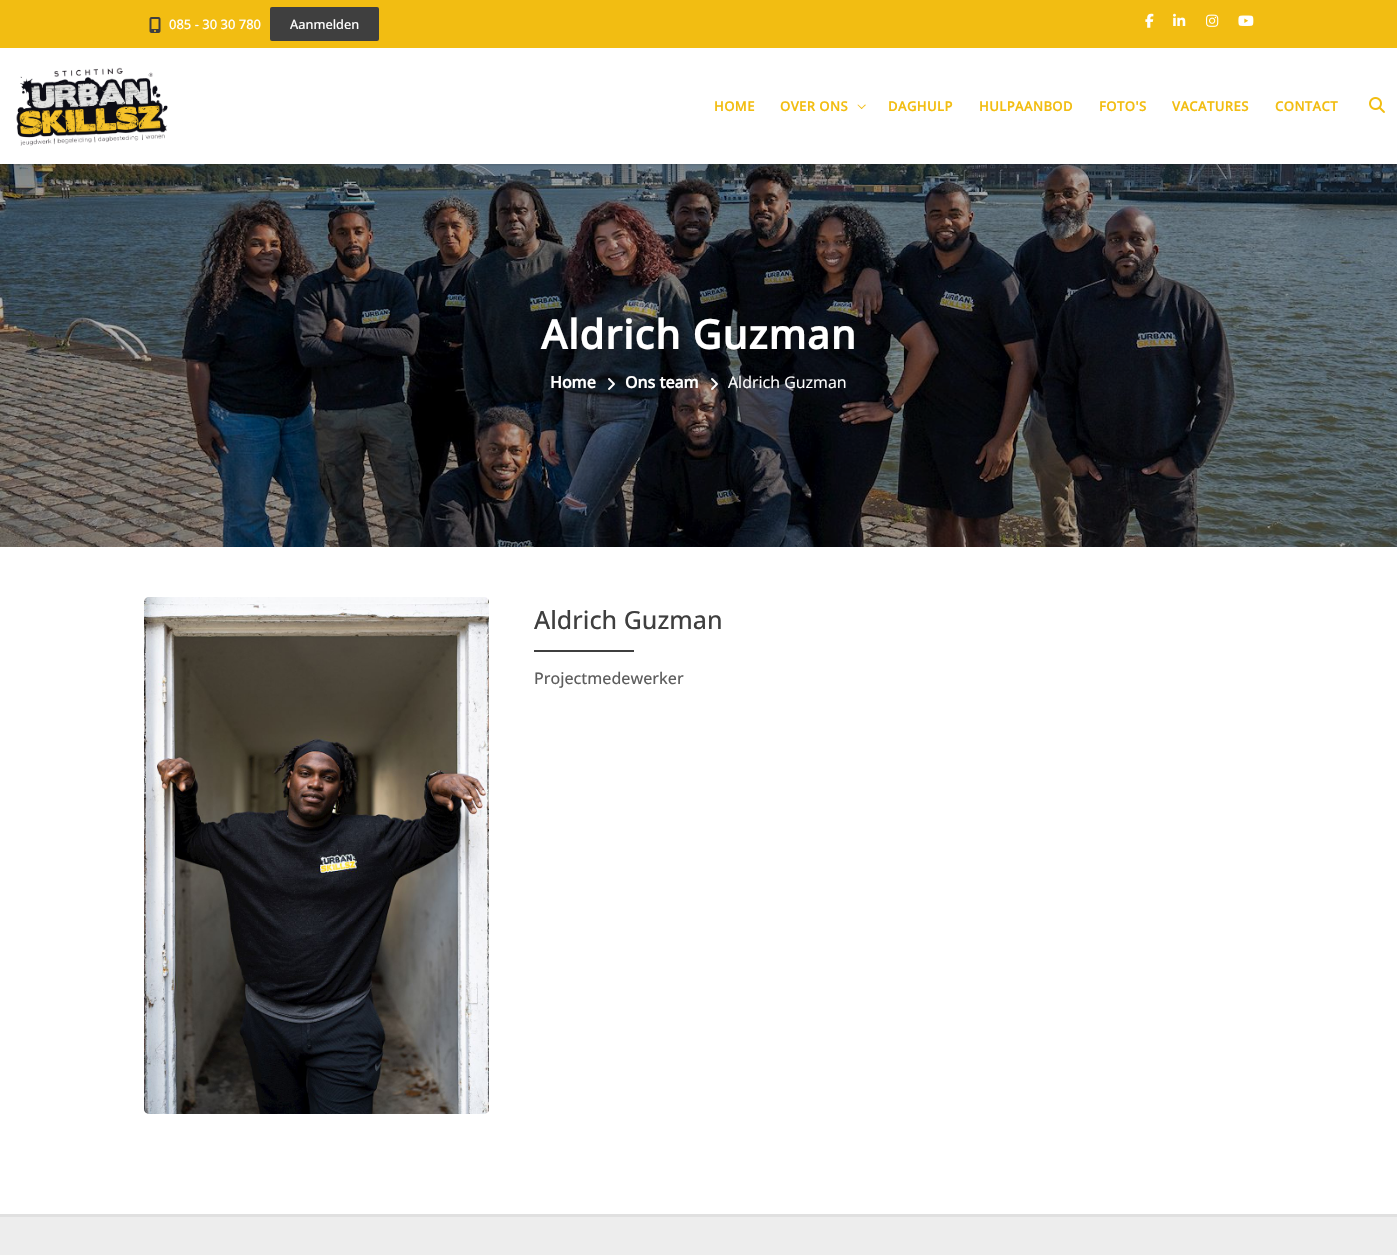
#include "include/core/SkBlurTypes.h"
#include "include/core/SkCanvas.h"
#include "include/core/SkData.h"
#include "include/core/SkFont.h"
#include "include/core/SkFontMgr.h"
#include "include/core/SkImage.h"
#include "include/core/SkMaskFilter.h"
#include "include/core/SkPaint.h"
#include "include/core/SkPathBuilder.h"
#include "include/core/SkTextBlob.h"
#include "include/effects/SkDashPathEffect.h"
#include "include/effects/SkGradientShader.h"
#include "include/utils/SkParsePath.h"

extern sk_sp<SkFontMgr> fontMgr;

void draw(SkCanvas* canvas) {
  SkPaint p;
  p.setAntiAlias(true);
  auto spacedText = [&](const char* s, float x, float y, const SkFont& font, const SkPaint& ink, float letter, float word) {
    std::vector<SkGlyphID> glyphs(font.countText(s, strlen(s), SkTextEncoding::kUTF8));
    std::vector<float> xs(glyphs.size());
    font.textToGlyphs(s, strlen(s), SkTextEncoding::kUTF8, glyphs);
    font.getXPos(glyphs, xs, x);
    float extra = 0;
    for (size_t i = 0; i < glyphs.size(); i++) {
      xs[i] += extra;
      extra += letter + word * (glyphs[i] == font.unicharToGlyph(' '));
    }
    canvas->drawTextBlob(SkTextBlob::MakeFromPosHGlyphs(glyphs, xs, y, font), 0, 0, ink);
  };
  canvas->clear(SK_ColorWHITE);
  canvas->drawImageRect(SkImages::DeferredFromEncodedData(SkData::MakeFromFileName("images/8.png")), SkRect::MakeLTRB(0, 164, 1397, 547), SkSamplingOptions());
  canvas->save();
  canvas->clipRect(SkRect::MakeLTRB(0, 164, 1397, 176));
  p.setColor(SkColorSetARGB(26, 0, 0, 0));
  p.setMaskFilter(SkMaskFilter::MakeBlur(kNormal_SkBlurStyle, 10));
  canvas->drawRect(SkRect::MakeLTRB(0, 4, 1397, 168), p);
  p.setMaskFilter(nullptr);
  canvas->restore();
  canvas->save();
  canvas->clipRect(SkRect::MakeLTRB(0, 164, 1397, 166));
  p.setColor(SkColorSetARGB(51, 0, 0, 0));
  p.setMaskFilter(SkMaskFilter::MakeBlur(kNormal_SkBlurStyle, 1.5f));
  canvas->drawRect(SkRect::MakeLTRB(0, 48, 1397, 164), p);
  p.setMaskFilter(nullptr);
  canvas->restore();
  p.setColor(SkColorSetRGB(242, 189, 18));
  canvas->drawRect(SkRect::MakeLTRB(0, 0, 1397, 48), p);
  canvas->drawImageRect(SkImages::DeferredFromEncodedData(SkData::MakeFromFileName("images/1.png")), SkRect::MakeLTRB(149, 17, 161, 33), SkSamplingOptions());
  p.setColor(SkColorSetRGB(63, 63, 63));
  canvas->drawRoundRect(SkRect::MakeLTRB(270, 7, 379, 41), 2, 2, p);
  canvas->drawImageRect(SkImages::DeferredFromEncodedData(SkData::MakeFromFileName("images/2.png")), SkRect::MakeLTRB(1145, 13, 1154, 28), SkSamplingOptions());
  canvas->drawImageRect(SkImages::DeferredFromEncodedData(SkData::MakeFromFileName("images/3.png")), SkRect::MakeLTRB(1173, 13, 1186, 26), SkSamplingOptions());
  canvas->drawImageRect(SkImages::DeferredFromEncodedData(SkData::MakeFromFileName("images/4.png")), SkRect::MakeLTRB(1206, 14, 1219, 27), SkSamplingOptions());
  canvas->drawImageRect(SkImages::DeferredFromEncodedData(SkData::MakeFromFileName("images/5.png")), SkRect::MakeLTRB(1238, 15, 1254, 26), SkSamplingOptions());
  canvas->drawImageRect(SkImages::DeferredFromEncodedData(SkData::MakeFromFileName("images/6.png")), SkRect::MakeLTRB(16, 67, 168, 146), SkSamplingOptions());
  p.setColor(SkColorSetRGB(242, 189, 18));
  canvas->drawPath(SkPathBuilder().moveTo(865, 104.5f).lineTo(866, 105).lineTo(861.5f, 109).lineTo(861, 108.5f).close().detach(), p);
  canvas->drawPath(SkPathBuilder().moveTo(858, 104.5f).lineTo(862.5f, 108.5f).lineTo(861.5f, 109).lineTo(857.5f, 105).close().detach(), p);
  canvas->drawImageRect(SkImages::DeferredFromEncodedData(SkData::MakeFromFileName("images/7.png")), SkRect::MakeLTRB(1369, 97, 1385, 113), SkSamplingOptions());
  canvas->drawImageRect(SkImages::DeferredFromEncodedData(SkData::MakeFromFileName("images/9.png")), SkRect::MakeLTRB(608, 378, 615, 390), SkSamplingOptions());
  canvas->drawImageRect(SkImages::DeferredFromEncodedData(SkData::MakeFromFileName("images/10.png")), SkRect::MakeLTRB(711, 378, 718, 390), SkSamplingOptions());
  canvas->drawImageRect(SkImages::DeferredFromEncodedData(SkData::MakeFromFileName("images/11.png")), SkRect::MakeLTRB(144, 597, 489, 1114), SkSamplingOptions());
  p.setColor(SkColorSetRGB(63, 63, 63));
  canvas->drawRect(SkRect::MakeLTRB(534, 650, 634, 652), p);
  p.setColor(SkColorSetRGB(237, 237, 237));
  canvas->drawRect(SkRect::MakeLTRB(0, 1217, 1397, 1255), p);
  p.setColor(SkColorSetRGB(224, 224, 224));
  canvas->drawRect(SkRect::MakeLTRB(0, 1214, 1397, 1217), p);
  SkFont font1(fontMgr->matchFamilyStyle("Open Sans", SkFontStyle(500, SkFontStyle::kNormal_Width, SkFontStyle::kUpright_Slant)), 13);
  font1.setSubpixel(true);
  p.setColor(SK_ColorWHITE);
  canvas->drawString("085 - 30 30 780", 169, 29, font1, p);
  SkFont font2(fontMgr->matchFamilyStyle("Open Sans", SkFontStyle(500, SkFontStyle::kNormal_Width, SkFontStyle::kUpright_Slant)), 12.75f);
  font2.setSubpixel(true);
  canvas->drawString("Aanmelden", 290, 29, font2, p);
  SkFont font3(fontMgr->matchFamilyStyle("Open Sans", SkFontStyle::Bold()), 13);
  font3.setSubpixel(true);
  p.setColor(SkColorSetRGB(242, 189, 18));
  spacedText("HOME", 714, 111, font3, p, 0.5f, 0);
  spacedText("OVER ONS", 780, 111, font3, p, 0.5f, 0);
  spacedText("DAGHULP", 888, 111, font3, p, 0.5f, 0);
  spacedText("HULPAANBOD", 979, 111, font3, p, 0.5f, 0);
  spacedText("FOTO'S", 1099, 111, font3, p, 0.5f, 0);
  spacedText("VACATURES", 1172, 111, font3, p, 0.5f, 0);
  spacedText("CONTACT", 1275, 111, font3, p, 0.5f, 0);
  SkFont font4(fontMgr->matchFamilyStyle("Open Sans", SkFontStyle::Bold()), 40);
  font4.setSubpixel(true);
  p.setColor(SK_ColorWHITE);
  spacedText("Aldrich Guzman", 541, 349, font4, p, 1, 0);
  SkFont font5(fontMgr->matchFamilyStyle("Open Sans", SkFontStyle::Bold()), 16);
  font5.setSubpixel(true);
  canvas->drawString("Home", 550, 388, font5, p);
  canvas->drawString("Ons team", 625, 388, font5, p);
  SkFont font6(fontMgr->matchFamilyStyle("Open Sans", SkFontStyle::Normal()), 16);
  font6.setSubpixel(true);
  canvas->drawString("Aldrich Guzman", 728, 388, font6, p);
  SkFont font7(fontMgr->matchFamilyStyle("Open Sans", SkFontStyle(500, SkFontStyle::kNormal_Width, SkFontStyle::kUpright_Slant)), 25);
  font7.setSubpixel(true);
  p.setColor(SkColorSetRGB(63, 63, 63));
  canvas->drawString("Aldrich Guzman", 534, 629, font7, p);
  SkFont font8(fontMgr->matchFamilyStyle("Open Sans", SkFontStyle(500, SkFontStyle::kNormal_Width, SkFontStyle::kUpright_Slant)), 16);
  font8.setSubpixel(true);
  p.setColor(SkColorSetRGB(94, 94, 94));
  canvas->drawString("Projectmedewerker", 534, 684, font8, p);
}
